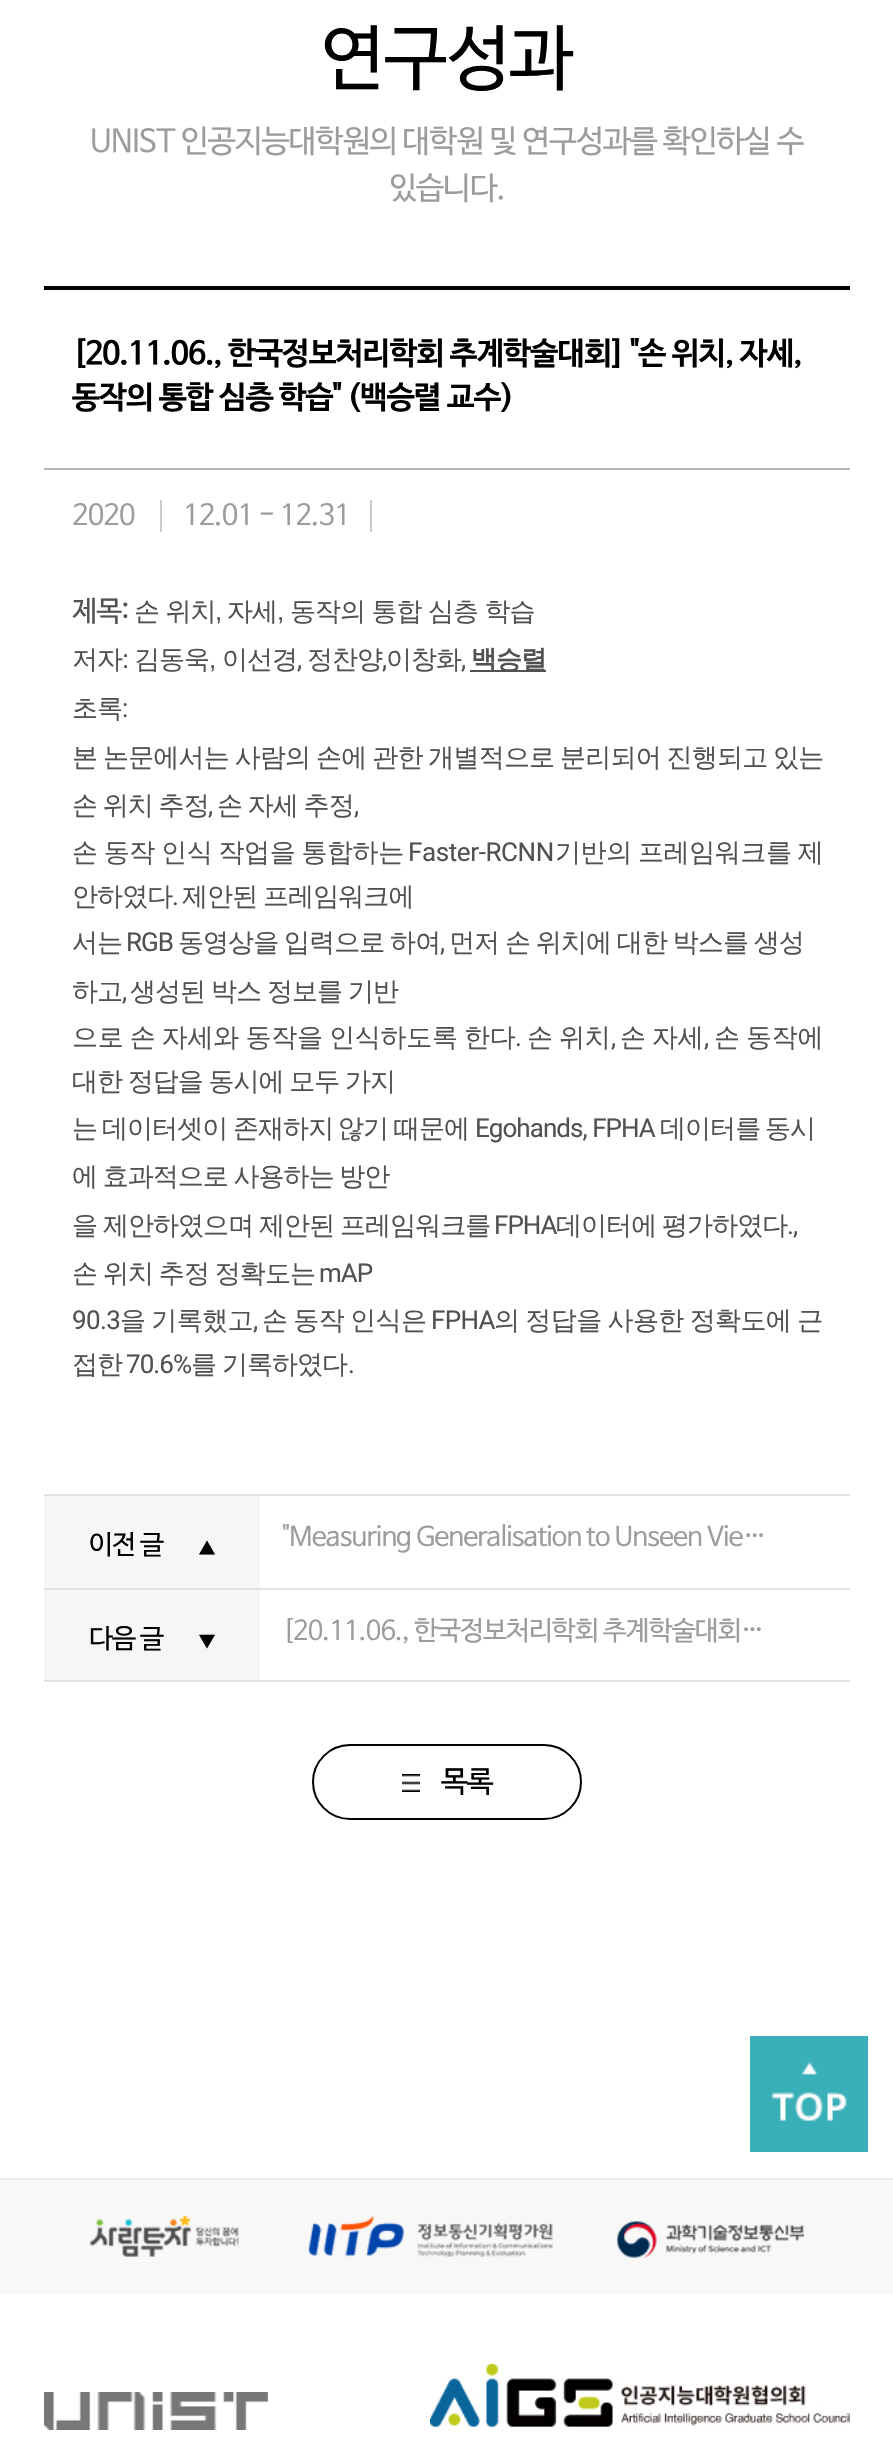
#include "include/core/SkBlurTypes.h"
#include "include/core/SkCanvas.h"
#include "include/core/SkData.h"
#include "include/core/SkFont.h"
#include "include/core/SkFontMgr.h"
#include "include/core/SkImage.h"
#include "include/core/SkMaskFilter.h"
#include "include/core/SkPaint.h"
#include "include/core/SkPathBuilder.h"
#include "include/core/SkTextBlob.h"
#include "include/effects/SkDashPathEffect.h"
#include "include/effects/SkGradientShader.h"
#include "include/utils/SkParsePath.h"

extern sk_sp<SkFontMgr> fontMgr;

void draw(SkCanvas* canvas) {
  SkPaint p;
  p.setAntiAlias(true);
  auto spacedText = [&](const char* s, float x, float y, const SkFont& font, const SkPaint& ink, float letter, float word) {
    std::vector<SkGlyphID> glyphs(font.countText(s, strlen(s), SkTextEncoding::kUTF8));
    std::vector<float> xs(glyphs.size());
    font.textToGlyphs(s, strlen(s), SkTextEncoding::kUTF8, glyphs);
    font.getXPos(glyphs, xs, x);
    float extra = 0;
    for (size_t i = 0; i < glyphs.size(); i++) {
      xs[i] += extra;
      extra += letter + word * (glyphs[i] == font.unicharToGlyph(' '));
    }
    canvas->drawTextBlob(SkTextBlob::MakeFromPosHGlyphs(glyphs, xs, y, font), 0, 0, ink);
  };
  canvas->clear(SK_ColorWHITE);
  p.setColor(SK_ColorBLACK);
  canvas->drawRect(SkRect::MakeLTRB(44, 286, 850, 290), p);
  p.setColor(SkColorSetRGB(181, 181, 181));
  canvas->drawRect(SkRect::MakeLTRB(44, 468, 850, 470), p);
  p.setColor(SkColorSetRGB(204, 204, 204));
  canvas->drawRect(SkRect::MakeLTRB(370, 500, 372, 532), p);
  canvas->drawRect(SkRect::MakeLTRB(160, 500, 162, 532), p);
  p.setColor(SkColorSetRGB(81, 81, 81));
  canvas->drawRect(SkRect::MakeLTRB(470, 670, 546, 672), p);
  p.setColor(SkColorSetRGB(226, 226, 226));
  canvas->drawRect(SkRect::MakeLTRB(44, 1494, 850, 1496), p);
  canvas->drawRect(SkRect::MakeLTRB(44, 1680, 850, 1682), p);
  p.setColor(SkColorSetRGB(246, 246, 246));
  canvas->drawRect(SkRect::MakeLTRB(44, 1496, 260, 1680), p);
  p.setColor(SkColorSetRGB(226, 226, 226));
  canvas->drawRect(SkRect::MakeLTRB(44, 1588, 850, 1590), p);
  p.setStyle(SkPaint::kStroke_Style);
  p.setStrokeWidth(2);
  p.setColor(SK_ColorBLACK);
  canvas->drawRoundRect(SkRect::MakeLTRB(313, 1745, 581, 1819), 37, 37, p);
  canvas->drawImageRect(SkImages::DeferredFromEncodedData(SkData::MakeFromFileName("images/1.png")), SkRect::MakeLTRB(402, 1774, 420, 1792), SkSamplingOptions());
  p.setStyle(SkPaint::kFill_Style);
  p.setColor(SkColorSetRGB(236, 236, 236));
  canvas->drawRect(SkRect::MakeLTRB(0, 2178, 893, 2180), p);
  canvas->drawImageRect(SkImages::DeferredFromEncodedData(SkData::MakeFromFileName("images/2.png")), SkRect::MakeLTRB(750, 2036, 868, 2152), SkSamplingOptions());
  p.setColor(SkColorSetRGB(248, 248, 248));
  canvas->drawRect(SkRect::MakeLTRB(0, 2180, 893, 2294), p);
  canvas->drawImageRect(SkImages::DeferredFromEncodedData(SkData::MakeFromFileName("images/3.png")), SkRect::MakeLTRB(90, 2216, 804, 2258), SkSamplingOptions());
  canvas->drawImageRect(SkImages::DeferredFromEncodedData(SkData::MakeFromFileName("images/4.png")), SkRect::MakeLTRB(44, 2392, 268, 2430), SkSamplingOptions());
  canvas->drawImageRect(SkImages::DeferredFromEncodedData(SkData::MakeFromFileName("images/5.png")), SkRect::MakeLTRB(430, 2364, 850, 2427), SkSamplingOptions());
  SkFont font1(fontMgr->matchFamilyStyle("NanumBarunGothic", SkFontStyle::Normal()), 71.5f);
  font1.setSubpixel(true);
  p.setColor(SK_ColorBLACK);
  spacedText("연구성과", 321, 81, font1, p, -0.95f, 0);
  SkFont font2(fontMgr->matchFamilyStyle("NanumBarunGothic", SkFontStyle::Normal()), 31.25f);
  font2.setSubpixel(true);
  p.setColor(SkColorSetRGB(156, 156, 156));
  spacedText("UNIST 인공지능대학원의 대학원 및 연구성과를 확인하실 수", 90, 151, font2, p, -0.95f, 0);
  spacedText("있습니다.", 389, 198, font2, p, -0.95f, 0);
  SkFont font3(fontMgr->matchFamilyStyle("NanumBarunGothic", SkFontStyle(600, SkFontStyle::kNormal_Width, SkFontStyle::kUpright_Slant)), 31.25f);
  font3.setSubpixel(true);
  p.setColor(SK_ColorBLACK);
  spacedText("[20.11.06., 한국정보처리학회 추계학술대회] \"손 위치, 자세,", 72, 363, font3, p, -0.95f, 0);
  spacedText("동작의 통합 심층 학습\" (백승렬 교수)", 72, 407, font3, p, -0.95f, 0);
  SkFont font4(fontMgr->matchFamilyStyle("NanumBarunGothic", SkFontStyle::Normal()), 28.5f);
  font4.setSubpixel(true);
  p.setColor(SkColorSetRGB(156, 156, 156));
  spacedText("2020", 72, 524, font4, p, -0.95f, 0);
  spacedText("12.01 - 12.31", 183, 524, font4, p, -0.95f, 0);
  p.setColor(SkColorSetRGB(81, 81, 81));
  spacedText("제목:", 72, 620, font4, p, -0.95f, 0);
  SkFont font5(fontMgr->matchFamilyStyle("WenQuanYi Zen Hei", SkFontStyle(500, SkFontStyle::kNormal_Width, SkFontStyle::kUpright_Slant)), 26);
  font5.setSubpixel(true);
  spacedText("손 위치", 134, 620, font5, p, -0.95f, -0.5f);
  SkFont font6(fontMgr->matchFamilyStyle("Liberation Sans", SkFontStyle::Normal()), 26);
  font6.setSubpixel(true);
  spacedText(",", 215, 620, font6, p, -0.95f, 0);
  spacedText("자세", 227, 620, font5, p, -0.95f, 0);
  spacedText(",", 277, 620, font6, p, -0.95f, 0);
  spacedText("동작의 통합 심층 학습", 290, 620, font5, p, -0.95f, -0.5f);
  spacedText("저자", 72, 668, font5, p, -0.95f, 0);
  spacedText(":", 122, 668, font6, p, -0.95f, 0);
  spacedText("김동욱", 134, 668, font5, p, -0.95f, 0);
  spacedText(",", 209, 668, font6, p, -0.95f, 0);
  spacedText("이선경", 222, 668, font5, p, -0.95f, 0);
  SkFont font7(fontMgr->matchFamilyStyle("Roboto", SkFontStyle::Normal()), 26);
  font7.setSubpixel(true);
  spacedText(",", 297, 668, font7, p, -0.95f, 0);
  spacedText("정찬양", 307, 668, font5, p, -0.95f, 0);
  spacedText(",", 382, 668, font7, p, -0.95f, 0);
  spacedText("이창화", 386, 668, font5, p, -0.95f, 0);
  spacedText(",", 461, 668, font7, p, -0.95f, 0);
  SkFont font8(fontMgr->matchFamilyStyle("WenQuanYi Zen Hei", SkFontStyle::Bold()), 26);
  font8.setSubpixel(true);
  spacedText("백승렬", 471, 668, font8, p, -0.95f, 0);
  spacedText("초록", 72, 717, font5, p, -0.95f, 0);
  spacedText(":", 122, 717, font7, p, -0.95f, 0);
  spacedText("본 논문에서는 사람의 손에 관한 개별적으로 분리되어 진행되고 있는", 72, 766, font5, p, -0.8f, -1.25f);
  spacedText("손 위치 추정", 72, 814, font5, p, -0.9f, -1.25f);
  spacedText(",", 208, 814, font7, p, -0.9f, 0);
  spacedText("손 자세 추정", 217, 814, font5, p, -0.9f, -1.25f);
  spacedText(",", 354, 814, font7, p, -0.9f, 0);
  spacedText("손 동작 인식 작업을 통합하는", 72, 861, font5, p, -0.4f, -1.25f);
  spacedText("Faster-RCNN", 408, 861, font7, p, -0.4f, 0);
  spacedText("기반의 프레임워크를 제", 555, 861, font5, p, -0.4f, -1.25f);
  spacedText("안하였다", 72, 905, font5, p, -0.9f, 0);
  spacedText(".", 172, 905, font7, p, -0.9f, 0);
  spacedText("제안된 프레임워크에", 182, 905, font5, p, -0.9f, -1.25f);
  spacedText("서는", 72, 951, font5, p, -0.95f, 0);
  spacedText("RGB", 126, 951, font7, p, -0.95f, 0);
  spacedText("동영상을 입력으로 하여", 178, 951, font5, p, -0.95f, -1);
  spacedText(",", 440, 951, font7, p, -0.95f, 0);
  spacedText("먼저 손 위치에 대한 박스를 생성", 449, 951, font5, p, -0.95f, -1);
  spacedText("하고", 72, 1000, font5, p, -0.95f, 0);
  spacedText(",", 122, 1000, font7, p, -0.95f, 0);
  spacedText("생성된 박스 정보를 기반", 130, 1000, font5, p, -0.95f, -1);
  spacedText("으로 손 자세와 동작을 인식하도록 한다", 72, 1046, font5, p, -0.25f, -1.25f);
  spacedText(".", 515, 1046, font7, p, -0.25f, 0);
  spacedText("손 위치", 527, 1046, font5, p, -0.25f, -1.25f);
  spacedText(",", 611, 1046, font7, p, -0.25f, 0);
  spacedText("손 자세", 620, 1046, font5, p, -0.25f, -1.25f);
  spacedText(",", 704, 1046, font7, p, -0.25f, 0);
  spacedText("손 동작에", 714, 1046, font5, p, -0.25f, -1.25f);
  spacedText("대한 정답을 동시에 모두 가지", 72, 1090, font5, p, -0.95f, -1.25f);
  spacedText("는", 72, 1137, font5, p, -0.95f, 0);
  spacedText("데이터셋이", 102, 1137, font5, p, -0.95f, 0);
  spacedText("존재하지", 233, 1137, font5, p, -0.95f, 0);
  spacedText("않기", 338, 1137, font5, p, -0.95f, 0);
  spacedText("때문에", 394, 1137, font5, p, -0.95f, 0);
  spacedText("Egohands, FPHA", 475, 1137, font7, p, -0.95f, 0);
  spacedText("데이터를", 660, 1137, font5, p, -0.95f, 0);
  spacedText("동시", 765, 1137, font5, p, -0.95f, 0);
  spacedText("에 효과적으로 사용하는 방안", 72, 1185, font5, p, -0.95f, -1.25f);
  spacedText("을 제안하였으며 제안된 프레임워크를", 72, 1234, font5, p, -0.95f, -1);
  spacedText("FPHA", 494, 1234, font7, p, -0.95f, 0);
  spacedText("데이터에 평가하였다", 556, 1234, font5, p, -0.95f, -1);
  spacedText(".,", 787, 1234, font7, p, -0.95f, 0);
  spacedText("손 위치 추정 정확도는", 72, 1282, font5, p, -0.95f, -1);
  spacedText("mAP", 319, 1282, font7, p, -0.95f, 0);
  spacedText("90.3", 72, 1329, font7, p, -0.6f, 0);
  spacedText("을 기록했고", 120, 1329, font5, p, -0.6f, -1.25f);
  spacedText(",", 253, 1329, font7, p, -0.6f, 0);
  spacedText("손 동작 인식은", 262, 1329, font5, p, -0.6f, -1.25f);
  spacedText("FPHA", 431, 1329, font7, p, -0.6f, 0);
  spacedText("의 정답을 사용한 정확도에 근", 494, 1329, font5, p, -0.6f, -1.25f);
  spacedText("접한", 72, 1373, font5, p, -0.95f, 0);
  spacedText("70.6%", 126, 1373, font7, p, -0.95f, 0);
  spacedText("를 기록하였다", 191, 1373, font5, p, -0.95f, -1);
  spacedText(".", 348, 1373, font7, p, -0.95f, 0);
  SkFont font9(fontMgr->matchFamilyStyle("NanumBarunGothic", SkFontStyle::Normal()), 26.8f);
  font9.setSubpixel(true);
  p.setColor(SK_ColorBLACK);
  spacedText("이전 글", 89, 1553, font9, p, -0.95f, 0);
  SkFont font10(fontMgr->matchFamilyStyle("NanumBarunGothic", SkFontStyle::Normal()), 18);
  font10.setSubpixel(true);
  spacedText("▲", 199, 1553, font10, p, -0.95f, 0);
  canvas->save();
  canvas->clipRect(SkRect::MakeLTRB(282, 1524, 774, 1554));
  p.setColor(SkColorSetRGB(156, 156, 156));
  spacedText("\"Measuring Generalisation to Unseen Vie…", 282, 1545, font9, p, -0.95f, 0);
  canvas->restore();
  p.setColor(SK_ColorBLACK);
  spacedText("다음 글", 89, 1647, font9, p, -0.95f, 0);
  spacedText("▼", 199, 1647, font10, p, -0.95f, 0);
  p.setColor(SkColorSetRGB(156, 156, 156));
  spacedText("[20.11.06., 한국정보처리학회 추계학술대회…", 282, 1639, font9, p, -0.95f, 0);
  SkFont font11(fontMgr->matchFamilyStyle("NanumBarunGothic", SkFontStyle::Normal()), 30);
  font11.setSubpixel(true);
  p.setColor(SK_ColorBLACK);
  spacedText("목록", 441, 1791, font11, p, -0.95f, 0);
}
